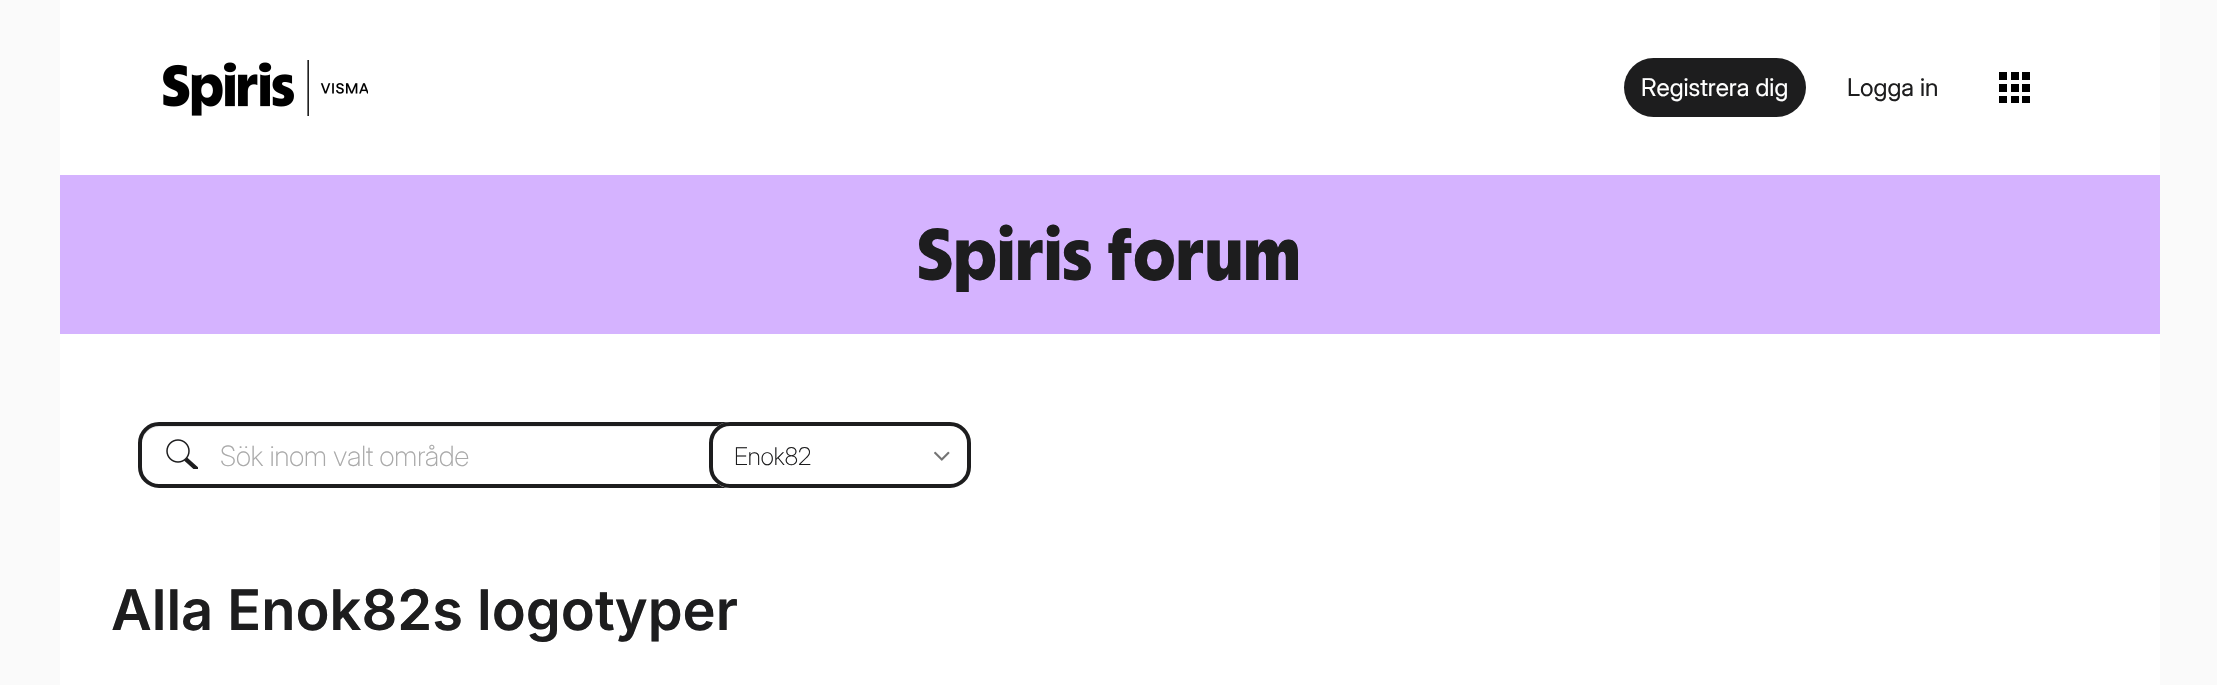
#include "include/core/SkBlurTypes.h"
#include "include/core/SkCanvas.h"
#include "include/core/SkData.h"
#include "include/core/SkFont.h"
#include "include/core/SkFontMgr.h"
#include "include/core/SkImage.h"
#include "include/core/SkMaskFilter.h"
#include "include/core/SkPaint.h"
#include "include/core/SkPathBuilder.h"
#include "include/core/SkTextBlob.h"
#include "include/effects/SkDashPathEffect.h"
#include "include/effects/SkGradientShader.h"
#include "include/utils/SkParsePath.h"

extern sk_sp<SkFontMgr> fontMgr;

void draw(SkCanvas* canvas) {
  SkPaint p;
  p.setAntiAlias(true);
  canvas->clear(SkColorSetRGB(250, 250, 250));
  p.setColor(SK_ColorWHITE);
  canvas->drawRect(SkRect::MakeLTRB(60, 334, 2160, 685), p);
  canvas->drawRect(SkRect::MakeLTRB(60, 0, 2160, 175), p);
  canvas->drawImageRect(SkImages::DeferredFromEncodedData(SkData::MakeFromFileName("images/1.png")), SkRect::MakeLTRB(163, 60, 368, 116), SkSamplingOptions());
  p.setColor(SkColorSetRGB(29, 29, 30));
  canvas->drawRoundRect(SkRect::MakeLTRB(1624, 58, 1806, 117), 29.5f, 29.5f, p);
  canvas->drawImageRect(SkImages::DeferredFromEncodedData(SkData::MakeFromFileName("images/2.png")), SkRect::MakeLTRB(1999, 72, 2030, 103), SkSamplingOptions());
  p.setColor(SkColorSetRGB(213, 179, 255));
  canvas->drawRect(SkRect::MakeLTRB(60, 175, 2160, 334), p);
  p.setColor(SkColorSetRGB(236, 236, 236));
  canvas->drawPath(SkPathBuilder().moveTo(159, 427).lineTo(898, 427).cubicTo(907, 427, 915, 435, 915, 444).lineTo(915, 443).cubicTo(915, 433, 907, 425, 897, 425).lineTo(160, 425).cubicTo(150, 425, 142, 433, 142, 443).lineTo(142, 444).cubicTo(142, 435, 150, 427, 159, 427).close().detach(), p);
  p.setStyle(SkPaint::kStroke_Style);
  p.setStrokeWidth(4);
  p.setColor(SkColorSetRGB(29, 29, 30));
  canvas->drawRoundRect(SkRect::MakeLTRB(140, 424, 917, 486), 19, 19, p);
  canvas->drawImageRect(SkImages::DeferredFromEncodedData(SkData::MakeFromFileName("images/3.png")), SkRect::MakeLTRB(166, 439, 198, 469), SkSamplingOptions());
  p.setStyle(SkPaint::kFill_Style);
  p.setColor(SK_ColorWHITE);
  canvas->drawRoundRect(SkRect::MakeLTRB(709, 422, 971, 488), 21, 21, p);
  canvas->drawImageRect(SkImages::DeferredFromEncodedData(SkData::MakeFromFileName("images/4.png")), SkRect::MakeLTRB(934, 451, 950, 461), SkSamplingOptions());
  p.setStyle(SkPaint::kStroke_Style);
  p.setColor(SkColorSetRGB(29, 29, 30));
  canvas->drawRoundRect(SkRect::MakeLTRB(711, 424, 969, 486), 19, 19, p);
  SkFont font1(fontMgr->matchFamilyStyle("Inter Display", SkFontStyle::Normal()), 24.5f);
  font1.setSubpixel(true);
  p.setStyle(SkPaint::kFill_Style);
  p.setColor(SK_ColorWHITE);
  canvas->drawString("Registrera dig", 1641, 96, font1, p);
  p.setColor(SkColorSetRGB(29, 29, 30));
  canvas->drawString("Logga in", 1847, 96, font1, p);
  SkFont font2(fontMgr->matchFamilyStyle("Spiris", SkFontStyle::Bold()), 73.5f);
  font2.setSubpixel(true);
  canvas->drawString("Spiris forum", 916, 280, font2, p);
  SkFont font3(fontMgr->matchFamilyStyle("Inter Display", SkFontStyle(200, SkFontStyle::kNormal_Width, SkFontStyle::kUpright_Slant)), 28);
  font3.setSubpixel(true);
  p.setColor(SkColorSetRGB(169, 169, 169));
  canvas->drawString("Sök inom valt område", 220, 466, font3, p);
  SkFont font4(fontMgr->matchFamilyStyle("Inter Display", SkFontStyle(200, SkFontStyle::kNormal_Width, SkFontStyle::kUpright_Slant)), 24.5f);
  font4.setSubpixel(true);
  p.setColor(SkColorSetRGB(29, 29, 30));
  canvas->drawString("Enok82", 734, 465, font4, p);
  SkFont font5(fontMgr->matchFamilyStyle("Inter", SkFontStyle(600, SkFontStyle::kNormal_Width, SkFontStyle::kUpright_Slant)), 56);
  font5.setSubpixel(true);
  canvas->drawString("Alla Enok82s logotyper", 111, 630, font5, p);
}
